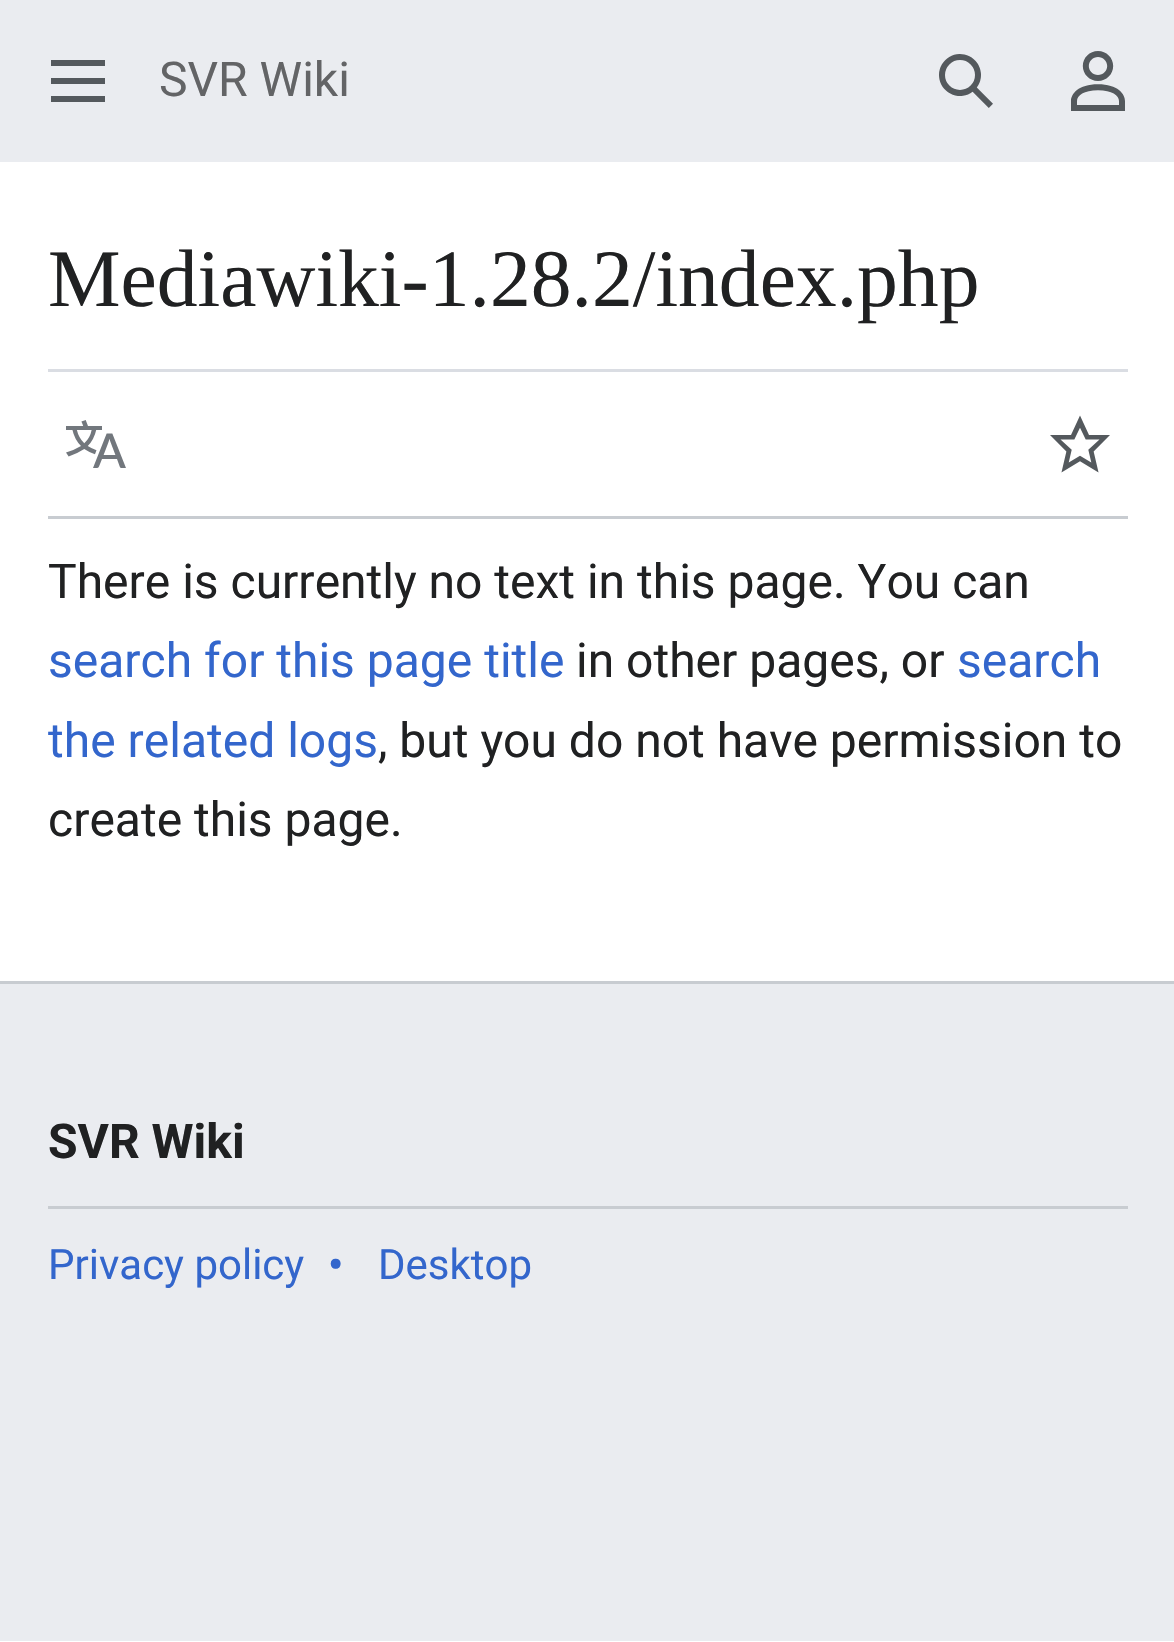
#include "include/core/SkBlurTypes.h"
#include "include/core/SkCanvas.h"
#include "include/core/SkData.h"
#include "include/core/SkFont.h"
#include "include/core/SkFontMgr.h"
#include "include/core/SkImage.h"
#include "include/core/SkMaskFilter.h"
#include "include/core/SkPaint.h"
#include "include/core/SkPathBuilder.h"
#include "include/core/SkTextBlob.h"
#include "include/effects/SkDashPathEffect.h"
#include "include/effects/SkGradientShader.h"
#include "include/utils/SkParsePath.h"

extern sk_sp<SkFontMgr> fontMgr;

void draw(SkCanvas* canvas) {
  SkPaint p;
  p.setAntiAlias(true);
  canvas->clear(SK_ColorWHITE);
  p.setColor(SkColorSetRGB(234, 236, 240));
  canvas->drawRect(SkRect::MakeLTRB(0, 0, 1174, 1641), p);
  canvas->drawImageRect(SkImages::DeferredFromEncodedData(SkData::MakeFromFileName("images/1.png")), SkRect::MakeLTRB(51, 60, 105, 102), SkSamplingOptions());
  canvas->drawImageRect(SkImages::DeferredFromEncodedData(SkData::MakeFromFileName("images/2.png")), SkRect::MakeLTRB(939, 54, 993, 108), SkSamplingOptions());
  canvas->drawImageRect(SkImages::DeferredFromEncodedData(SkData::MakeFromFileName("images/3.png")), SkRect::MakeLTRB(1071, 51, 1125, 111), SkSamplingOptions());
  p.setColor(SK_ColorWHITE);
  canvas->drawRect(SkRect::MakeLTRB(0, 162, 1174, 981), p);
  p.setColor(SkColorSetRGB(218, 221, 227));
  canvas->drawRect(SkRect::MakeLTRB(48, 369, 1128, 372), p);
  p.setColor(SkColorSetRGB(200, 204, 209));
  canvas->drawRect(SkRect::MakeLTRB(48, 516, 1128, 519), p);
  canvas->drawImageRect(SkImages::DeferredFromEncodedData(SkData::MakeFromFileName("images/4.png")), SkRect::MakeLTRB(66, 420, 126, 468), SkSamplingOptions());
  canvas->drawImageRect(SkImages::DeferredFromEncodedData(SkData::MakeFromFileName("images/5.png")), SkRect::MakeLTRB(1050, 415, 1110, 473), SkSamplingOptions());
  canvas->drawRect(SkRect::MakeLTRB(0, 981, 1174, 984), p);
  canvas->drawRect(SkRect::MakeLTRB(48, 1206, 1128, 1209), p);
  SkFont font1(fontMgr->matchFamilyStyle("Roboto", SkFontStyle::Normal()), 48);
  font1.setSubpixel(true);
  p.setColor(SkColorSetRGB(99, 100, 102));
  canvas->drawString("SVR Wiki", 159, 96, font1, p);
  SkFont font2(fontMgr->matchFamilyStyle("Liberation Serif", SkFontStyle::Normal()), 81.6f);
  font2.setSubpixel(true);
  p.setColor(SkColorSetRGB(32, 33, 34));
  canvas->drawString("Mediawiki-1.28.2/index.php", 48, 306, font2, p);
  canvas->drawString("There is currently no text in this page. You can", 48, 598, font1, p);
  p.setColor(SkColorSetRGB(51, 102, 204));
  canvas->drawString("search for this page title", 48, 677, font1, p);
  p.setColor(SkColorSetRGB(32, 33, 34));
  canvas->drawString("in other pages, or", 576, 677, font1, p);
  p.setColor(SkColorSetRGB(51, 102, 204));
  canvas->drawString("search", 957, 677, font1, p);
  canvas->drawString("the related logs", 48, 757, font1, p);
  p.setColor(SkColorSetRGB(32, 33, 34));
  canvas->drawString(", but you do not have permission to", 378, 757, font1, p);
  canvas->drawString("create this page.", 48, 836, font1, p);
  SkFont font3(fontMgr->matchFamilyStyle("Roboto", SkFontStyle::Bold()), 48);
  font3.setSubpixel(true);
  canvas->drawString("SVR Wiki", 48, 1158, font3, p);
  SkFont font4(fontMgr->matchFamilyStyle("Roboto", SkFontStyle::Normal()), 42);
  font4.setSubpixel(true);
  p.setColor(SkColorSetRGB(51, 102, 204));
  canvas->drawString("Privacy policy", 48, 1279, font4, p);
  SkFont font5(fontMgr->matchFamilyStyle("Roboto", SkFontStyle::Bold()), 42);
  font5.setSubpixel(true);
  canvas->drawString("•", 328, 1279, font5, p);
  canvas->drawString("Desktop", 378, 1279, font4, p);
}
